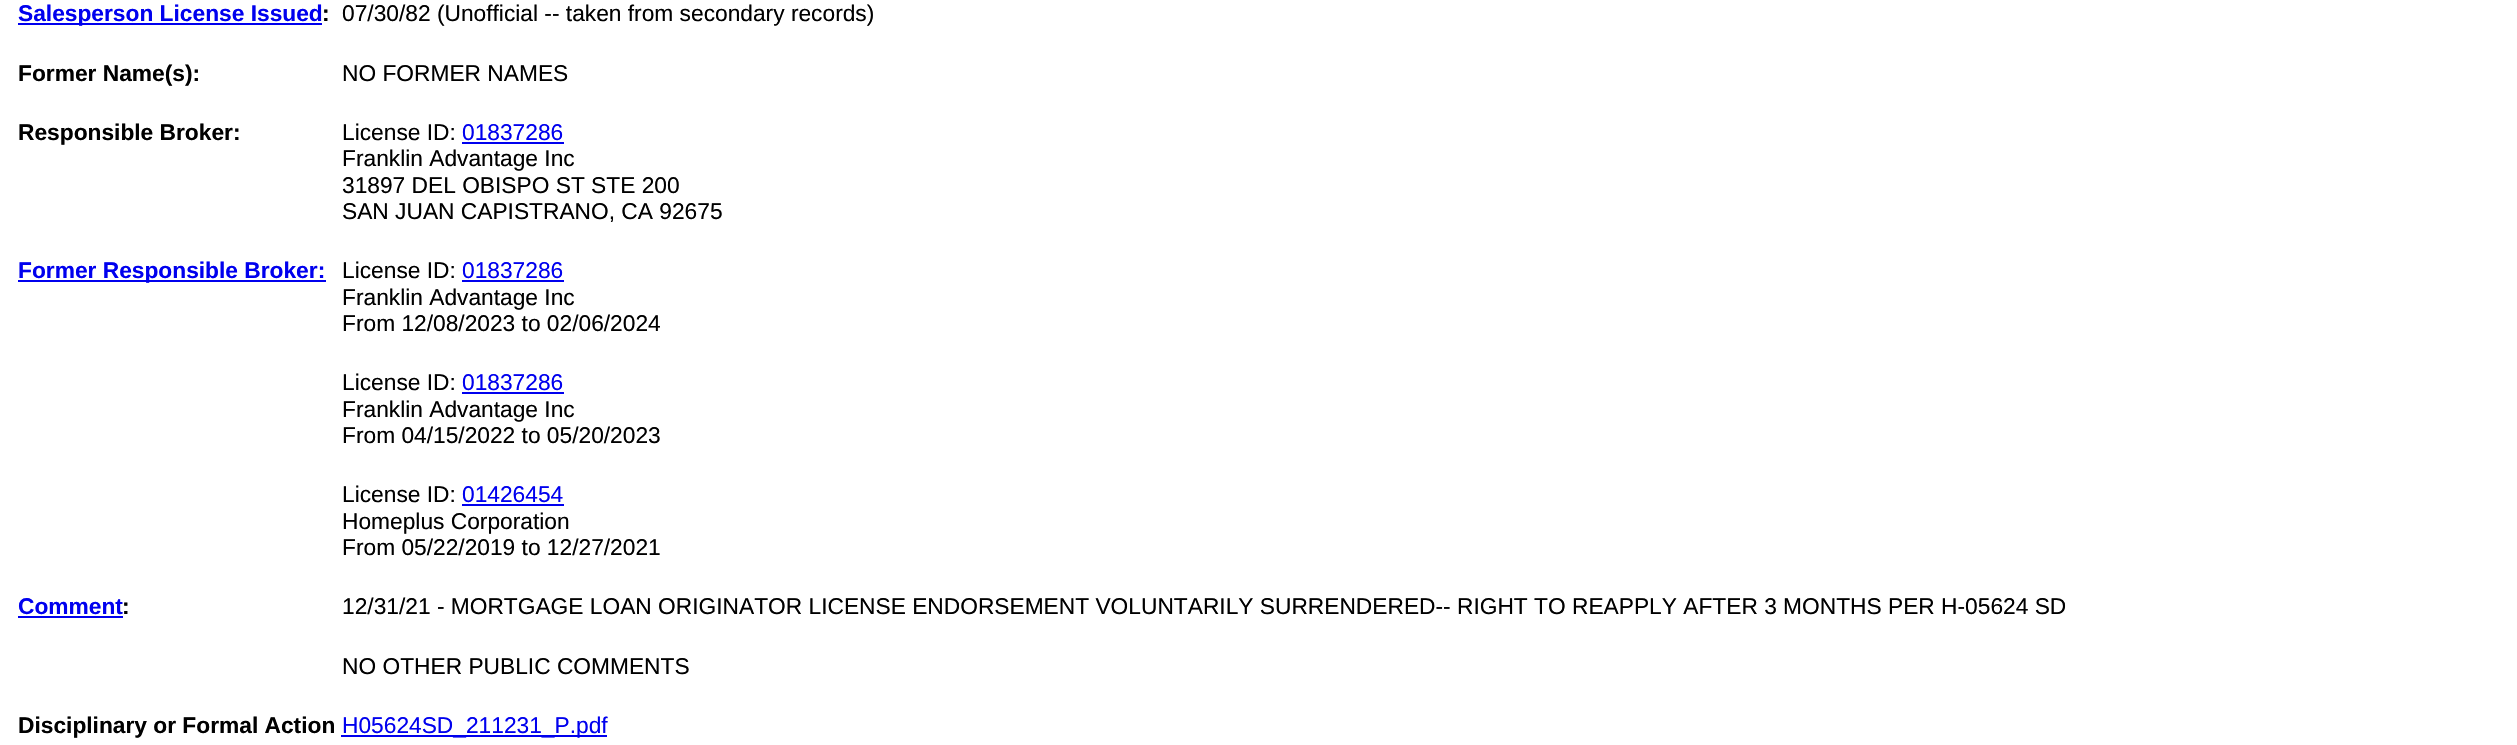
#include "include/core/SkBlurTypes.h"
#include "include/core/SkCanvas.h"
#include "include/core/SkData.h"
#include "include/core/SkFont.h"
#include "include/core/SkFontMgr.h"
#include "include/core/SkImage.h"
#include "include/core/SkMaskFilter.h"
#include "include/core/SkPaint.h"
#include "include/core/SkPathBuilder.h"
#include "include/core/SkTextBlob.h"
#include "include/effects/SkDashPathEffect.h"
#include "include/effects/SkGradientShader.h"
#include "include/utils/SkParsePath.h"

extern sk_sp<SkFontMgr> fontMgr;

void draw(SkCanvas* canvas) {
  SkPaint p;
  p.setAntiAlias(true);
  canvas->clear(SK_ColorWHITE);
  p.setColor(SkColorSetRGB(0, 0, 238));
  canvas->drawRect(SkRect::MakeLTRB(18, 23, 322, 25), p);
  canvas->drawRect(SkRect::MakeLTRB(462, 142, 564, 144), p);
  canvas->drawRect(SkRect::MakeLTRB(18, 280, 326, 282), p);
  canvas->drawRect(SkRect::MakeLTRB(462, 280, 564, 282), p);
  canvas->drawRect(SkRect::MakeLTRB(462, 392, 564, 394), p);
  canvas->drawRect(SkRect::MakeLTRB(462, 504, 564, 506), p);
  canvas->drawRect(SkRect::MakeLTRB(18, 616, 123, 618), p);
  canvas->drawRect(SkRect::MakeLTRB(341, 735, 607, 737), p);
  SkFont font1(fontMgr->matchFamilyStyle("Liberation Sans", SkFontStyle::Bold()), 22.75f);
  font1.setSubpixel(true);
  canvas->drawString("Salesperson License Issued", 18, 21, font1, p);
  p.setColor(SK_ColorBLACK);
  canvas->drawString(":", 322, 21, font1, p);
  SkFont font2(fontMgr->matchFamilyStyle("Liberation Sans", SkFontStyle::Normal()), 22.75f);
  font2.setSubpixel(true);
  canvas->drawString("07/30/82 (Unofficial -- taken from secondary records)", 342, 21, font2, p);
  canvas->drawString("Former Name(s):", 18, 81, font1, p);
  canvas->drawString("NO FORMER NAMES", 342, 81, font2, p);
  canvas->drawString("Responsible Broker:", 18, 140, font1, p);
  canvas->drawString("License ID:", 342, 140, font2, p);
  p.setColor(SkColorSetRGB(0, 0, 238));
  canvas->drawString("01837286", 462, 140, font2, p);
  p.setColor(SK_ColorBLACK);
  canvas->drawString("Franklin Advantage Inc", 342, 166, font2, p);
  canvas->drawString("31897 DEL OBISPO ST STE 200", 342, 193, font2, p);
  canvas->drawString("SAN JUAN CAPISTRANO, CA 92675", 342, 219, font2, p);
  p.setColor(SkColorSetRGB(0, 0, 238));
  canvas->drawString("Former Responsible Broker:", 18, 278, font1, p);
  p.setColor(SK_ColorBLACK);
  canvas->drawString("License ID:", 342, 278, font2, p);
  p.setColor(SkColorSetRGB(0, 0, 238));
  canvas->drawString("01837286", 462, 278, font2, p);
  p.setColor(SK_ColorBLACK);
  canvas->drawString("Franklin Advantage Inc", 342, 305, font2, p);
  canvas->drawString("From 12/08/2023 to 02/06/2024", 342, 331, font2, p);
  canvas->drawString("License ID:", 342, 390, font2, p);
  p.setColor(SkColorSetRGB(0, 0, 238));
  canvas->drawString("01837286", 462, 390, font2, p);
  p.setColor(SK_ColorBLACK);
  canvas->drawString("Franklin Advantage Inc", 342, 417, font2, p);
  canvas->drawString("From 04/15/2022 to 05/20/2023", 342, 443, font2, p);
  canvas->drawString("License ID:", 342, 502, font2, p);
  p.setColor(SkColorSetRGB(0, 0, 238));
  canvas->drawString("01426454", 462, 502, font2, p);
  p.setColor(SK_ColorBLACK);
  canvas->drawString("Homeplus Corporation", 342, 529, font2, p);
  canvas->drawString("From 05/22/2019 to 12/27/2021", 342, 555, font2, p);
  p.setColor(SkColorSetRGB(0, 0, 238));
  canvas->drawString("Comment", 18, 614, font1, p);
  p.setColor(SK_ColorBLACK);
  canvas->drawString(":", 122, 614, font1, p);
  canvas->drawString("12/31/21 - MORTGAGE LOAN ORIGINATOR LICENSE ENDORSEMENT VOLUNTARILY SURRENDERED-- RIGHT TO REAPPLY AFTER 3 MONTHS PER H-05624 SD", 342, 614, font2, p);
  canvas->drawString("NO OTHER PUBLIC COMMENTS", 342, 674, font2, p);
  canvas->drawString("Disciplinary or Formal Action", 18, 733, font1, p);
  p.setColor(SkColorSetRGB(0, 0, 238));
  canvas->drawString("H05624SD_211231_P.pdf", 342, 733, font2, p);
}
